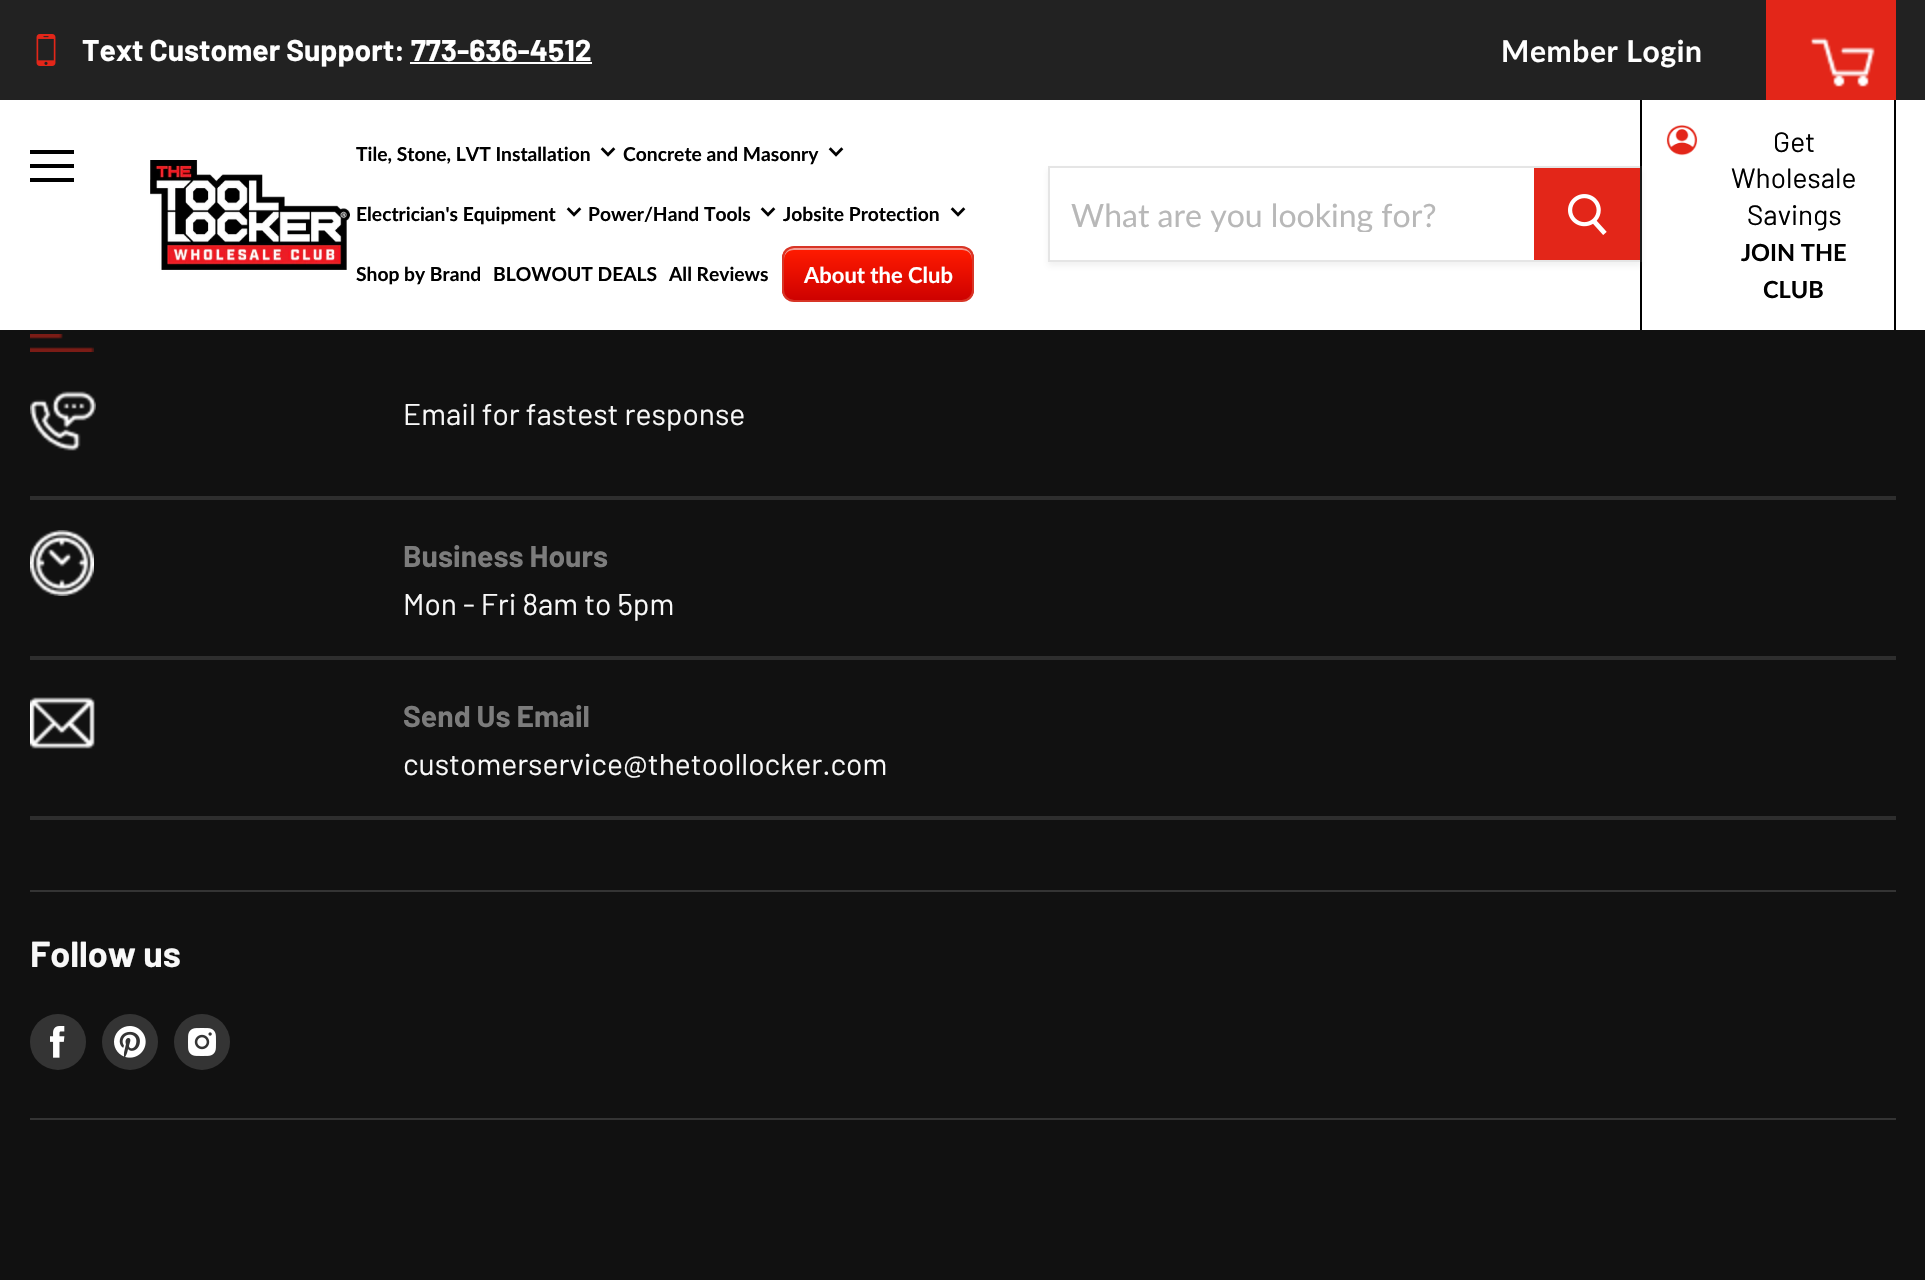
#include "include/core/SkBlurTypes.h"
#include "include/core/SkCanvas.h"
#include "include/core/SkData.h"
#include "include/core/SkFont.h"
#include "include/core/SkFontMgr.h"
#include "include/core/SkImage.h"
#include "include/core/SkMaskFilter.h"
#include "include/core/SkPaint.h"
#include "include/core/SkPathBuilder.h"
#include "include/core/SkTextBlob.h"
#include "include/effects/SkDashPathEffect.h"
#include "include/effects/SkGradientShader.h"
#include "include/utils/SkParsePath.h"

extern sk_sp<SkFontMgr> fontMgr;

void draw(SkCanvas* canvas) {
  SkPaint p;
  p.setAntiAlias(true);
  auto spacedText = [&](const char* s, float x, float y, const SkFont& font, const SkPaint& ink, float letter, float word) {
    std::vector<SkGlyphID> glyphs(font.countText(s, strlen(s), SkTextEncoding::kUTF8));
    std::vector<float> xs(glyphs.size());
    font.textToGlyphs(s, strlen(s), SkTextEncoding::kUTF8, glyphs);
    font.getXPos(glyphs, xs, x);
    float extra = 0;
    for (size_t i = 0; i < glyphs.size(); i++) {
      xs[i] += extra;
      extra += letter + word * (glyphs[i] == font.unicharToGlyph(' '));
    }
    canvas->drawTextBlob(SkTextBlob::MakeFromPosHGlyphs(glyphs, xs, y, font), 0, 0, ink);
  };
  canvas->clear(SkColorSetRGB(17, 17, 17));
  p.setColor(SkColorSetRGB(34, 34, 34));
  canvas->drawRect(SkRect::MakeLTRB(0, 0, 1925, 100), p);
  canvas->drawImageRect(SkImages::DeferredFromEncodedData(SkData::MakeFromFileName("images/1.png")), SkRect::MakeLTRB(36, 34, 56, 66), SkSamplingOptions());
  p.setColor(SK_ColorWHITE);
  canvas->drawRect(SkRect::MakeLTRB(410, 62, 592, 64), p);
  p.setColor(SkColorSetRGB(227, 38, 25));
  canvas->drawRect(SkRect::MakeLTRB(1766, 0, 1896, 100), p);
  canvas->drawImageRect(SkImages::DeferredFromEncodedData(SkData::MakeFromFileName("images/2.png")), SkRect::MakeLTRB(1810, 37, 1875, 87), SkSamplingOptions());
  p.setColor(SK_ColorWHITE);
  canvas->drawRect(SkRect::MakeLTRB(0, 100, 1925, 330), p);
  p.setColor(SK_ColorBLACK);
  canvas->drawRect(SkRect::MakeLTRB(30, 150, 74, 154), p);
  canvas->drawRect(SkRect::MakeLTRB(30, 164, 74, 168), p);
  canvas->drawRect(SkRect::MakeLTRB(30, 178, 74, 182), p);
  canvas->drawImageRect(SkImages::DeferredFromEncodedData(SkData::MakeFromFileName("images/3.png")), SkRect::MakeLTRB(150, 160, 350, 270), SkSamplingOptions());
  canvas->drawImageRect(SkImages::DeferredFromEncodedData(SkData::MakeFromFileName("images/4.png")), SkRect::MakeLTRB(600, 147, 616, 157), SkSamplingOptions());
  canvas->drawImageRect(SkImages::DeferredFromEncodedData(SkData::MakeFromFileName("images/4.png")), SkRect::MakeLTRB(828, 147, 844, 157), SkSamplingOptions());
  canvas->drawImageRect(SkImages::DeferredFromEncodedData(SkData::MakeFromFileName("images/4.png")), SkRect::MakeLTRB(566, 207, 582, 217), SkSamplingOptions());
  canvas->drawImageRect(SkImages::DeferredFromEncodedData(SkData::MakeFromFileName("images/4.png")), SkRect::MakeLTRB(760, 207, 776, 217), SkSamplingOptions());
  canvas->drawImageRect(SkImages::DeferredFromEncodedData(SkData::MakeFromFileName("images/4.png")), SkRect::MakeLTRB(950, 207, 966, 217), SkSamplingOptions());
  canvas->save();
  canvas->clipPath(SkPathBuilder().moveTo(794, 246).lineTo(962, 246).cubicTo(968.5f, 246, 974, 251.5f, 974, 258).lineTo(974, 290).cubicTo(974, 296.5f, 968.5f, 302, 962, 302).lineTo(794, 302).cubicTo(787.5f, 302, 782, 296.5f, 782, 290).lineTo(782, 258).cubicTo(782, 251.5f, 787.5f, 246, 794, 246).close().detach(), true);
  {
    const SkColor colors[] = {SkColorSetRGB(254, 26, 0), SkColorSetRGB(206, 1, 0)};
    const float stops[] = {0.05f, 1};
    const SkPoint ends[] = {{878, 248}, {878, 300}};
    p.setShader(SkGradientShader::MakeLinear(ends, colors, stops, 2, SkTileMode::kClamp));
    p.setAlpha(255);
  }
  canvas->drawRect(SkRect::MakeLTRB(782, 248, 974, 300), p);
  canvas->restore();
  p.setShader(nullptr);
  p.setColor(SkColorSetRGB(242, 156, 147));
  canvas->drawPath(SkPathBuilder().moveTo(794, 250).lineTo(962, 250).cubicTo(968, 250, 972, 254, 972, 260).lineTo(972, 258).cubicTo(972, 252, 968, 248, 962, 248).lineTo(794, 248).cubicTo(788, 248, 784, 252, 784, 258).lineTo(784, 260).cubicTo(784, 254, 788, 250, 794, 250).close().detach(), p);
  p.setStyle(SkPaint::kStroke_Style);
  p.setStrokeWidth(2);
  p.setColor(SkColorSetRGB(216, 53, 38));
  canvas->drawRoundRect(SkRect::MakeLTRB(783, 247, 973, 301), 11, 11, p);
  p.setStyle(SkPaint::kFill_Style);
  p.setColor(SK_ColorBLACK);
  canvas->drawRect(SkRect::MakeLTRB(1640, 100, 1642, 330), p);
  canvas->save();
  canvas->clipPath(SkPathBuilder(SkPathFillType::kEvenOdd).moveTo(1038, 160).lineTo(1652, 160).lineTo(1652, 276).lineTo(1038, 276).close().moveTo(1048, 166).lineTo(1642, 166).lineTo(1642, 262).lineTo(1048, 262).close().detach(), true);
  p.setColor(SkColorSetARGB(28, 124, 124, 124));
  p.setMaskFilter(SkMaskFilter::MakeBlur(kNormal_SkBlurStyle, 3));
  canvas->drawRect(SkRect::MakeLTRB(1048, 170, 1642, 266), p);
  p.setMaskFilter(nullptr);
  canvas->restore();
  p.setStyle(SkPaint::kStroke_Style);
  p.setColor(SkColorSetARGB(51, 124, 124, 124));
  canvas->drawRect(SkRect::MakeLTRB(1049, 167, 1641, 261), p);
  p.setStyle(SkPaint::kFill_Style);
  p.setColor(SkColorSetRGB(227, 38, 25));
  canvas->drawRect(SkRect::MakeLTRB(1534, 168, 1640, 260), p);
  canvas->drawImageRect(SkImages::DeferredFromEncodedData(SkData::MakeFromFileName("images/5.png")), SkRect::MakeLTRB(1568, 194, 1607, 235), SkSamplingOptions());
  p.setColor(SK_ColorBLACK);
  canvas->drawRect(SkRect::MakeLTRB(1894, 100, 1896, 330), p);
  canvas->drawImageRect(SkImages::DeferredFromEncodedData(SkData::MakeFromFileName("images/6.png")), SkRect::MakeLTRB(1666, 125, 1698, 156), SkSamplingOptions());
  p.setColor(SkColorSetRGB(52, 52, 52));
  canvas->drawRect(SkRect::MakeLTRB(30, 890, 1896, 892), p);
  canvas->drawImageRect(SkImages::DeferredFromEncodedData(SkData::MakeFromFileName("images/7.png")), SkRect::MakeLTRB(30, 334, 94, 352), SkSamplingOptions());
  p.setColor(SkColorSetRGB(46, 46, 46));
  canvas->drawRect(SkRect::MakeLTRB(30, 496, 1896, 500), p);
  canvas->drawImageRect(SkImages::DeferredFromEncodedData(SkData::MakeFromFileName("images/8.png")), SkRect::MakeLTRB(30, 391, 96, 451), SkSamplingOptions());
  canvas->drawRect(SkRect::MakeLTRB(30, 656, 1896, 660), p);
  canvas->drawImageRect(SkImages::DeferredFromEncodedData(SkData::MakeFromFileName("images/9.png")), SkRect::MakeLTRB(30, 530, 94, 596), SkSamplingOptions());
  canvas->drawRect(SkRect::MakeLTRB(30, 816, 1896, 820), p);
  canvas->drawImageRect(SkImages::DeferredFromEncodedData(SkData::MakeFromFileName("images/10.png")), SkRect::MakeLTRB(30, 697, 95, 749), SkSamplingOptions());
  p.setColor(SkColorSetRGB(52, 52, 52));
  canvas->drawRect(SkRect::MakeLTRB(30, 1118, 1896, 1120), p);
  canvas->drawCircle(58, 1042, 28, p);
  canvas->drawImageRect(SkImages::DeferredFromEncodedData(SkData::MakeFromFileName("images/11.png")), SkRect::MakeLTRB(50, 1026, 65, 1058), SkSamplingOptions());
  canvas->drawCircle(130, 1042, 28, p);
  canvas->drawImageRect(SkImages::DeferredFromEncodedData(SkData::MakeFromFileName("images/12.png")), SkRect::MakeLTRB(114, 1026, 146, 1058), SkSamplingOptions());
  canvas->drawCircle(202, 1042, 28, p);
  canvas->drawImageRect(SkImages::DeferredFromEncodedData(SkData::MakeFromFileName("images/13.png")), SkRect::MakeLTRB(188, 1028, 216, 1056), SkSamplingOptions());
  SkFont font1(fontMgr->matchFamilyStyle("Barlow", SkFontStyle::Bold()), 30);
  font1.setSubpixel(true);
  p.setColor(SK_ColorWHITE);
  canvas->drawString("Text Customer Support: 773-636-4512", 82, 61, font1, p);
  SkFont font2(fontMgr->matchFamilyStyle("Lato", SkFontStyle::Bold()), 30);
  font2.setSubpixel(true);
  spacedText("Member Login", 1501, 62, font2, p, 0.6f, 0);
  SkFont font3(fontMgr->matchFamilyStyle("Lato", SkFontStyle::Bold()), 19.25f);
  font3.setSubpixel(true);
  p.setColor(SK_ColorBLACK);
  canvas->drawString("Tile, Stone, LVT Installation", 356, 161, font3, p);
  canvas->drawString("Concrete and Masonry", 623, 161, font3, p);
  canvas->drawString("Electrician's Equipment", 356, 221, font3, p);
  canvas->drawString("Power/Hand Tools", 588, 221, font3, p);
  canvas->drawString("Jobsite Protection", 783, 221, font3, p);
  canvas->drawString("Shop by Brand", 356, 281, font3, p);
  canvas->drawString("BLOWOUT DEALS", 493, 281, font3, p);
  canvas->drawString("All Reviews", 669, 281, font3, p);
  SkFont font4(fontMgr->matchFamilyStyle("Lato", SkFontStyle::Bold()), 22);
  font4.setSubpixel(true);
  p.setColor(SK_ColorWHITE);
  canvas->drawString("About the Club", 804, 283, font4, p);
  canvas->save();
  canvas->clipRect(SkRect::MakeLTRB(1070, 194, 1514, 232));
  SkFont font5(fontMgr->matchFamilyStyle("Lato", SkFontStyle::Normal()), 32);
  font5.setSubpixel(true);
  p.setColor(SkColorSetRGB(184, 184, 184));
  canvas->drawString("What are you looking for?", 1071, 227, font5, p);
  canvas->restore();
  SkFont font6(fontMgr->matchFamilyStyle("Barlow", SkFontStyle::Normal()), 28);
  font6.setSubpixel(true);
  p.setColor(SK_ColorBLACK);
  canvas->drawString("Get", 1773, 152, font6, p);
  canvas->drawString("Wholesale", 1731, 188, font6, p);
  canvas->drawString("Savings", 1747, 225, font6, p);
  SkFont font7(fontMgr->matchFamilyStyle("Lato", SkFontStyle::Bold()), 23.5f);
  font7.setSubpixel(true);
  canvas->drawString("JOIN THE", 1741, 261, font7, p);
  canvas->drawString("CLUB", 1763, 298, font7, p);
  SkFont font8(fontMgr->matchFamilyStyle("Barlow", SkFontStyle::Normal()), 30);
  font8.setSubpixel(true);
  p.setColor(SkColorSetRGB(248, 248, 248));
  canvas->drawString("Email for fastest response", 403, 425, font8, p);
  p.setColor(SkColorSetRGB(124, 124, 124));
  canvas->drawString("Business Hours", 403, 567, font1, p);
  p.setColor(SkColorSetRGB(248, 248, 248));
  canvas->drawString("Mon - Fri 8am to 5pm", 403, 615, font8, p);
  p.setColor(SkColorSetRGB(124, 124, 124));
  canvas->drawString("Send Us Email", 403, 727, font1, p);
  p.setColor(SkColorSetRGB(248, 248, 248));
  canvas->drawString("customerservice@thetoollocker.com", 403, 775, font8, p);
  SkFont font9(fontMgr->matchFamilyStyle("Barlow", SkFontStyle::Bold()), 36);
  font9.setSubpixel(true);
  canvas->drawString("Follow us", 30, 967, font9, p);
}
